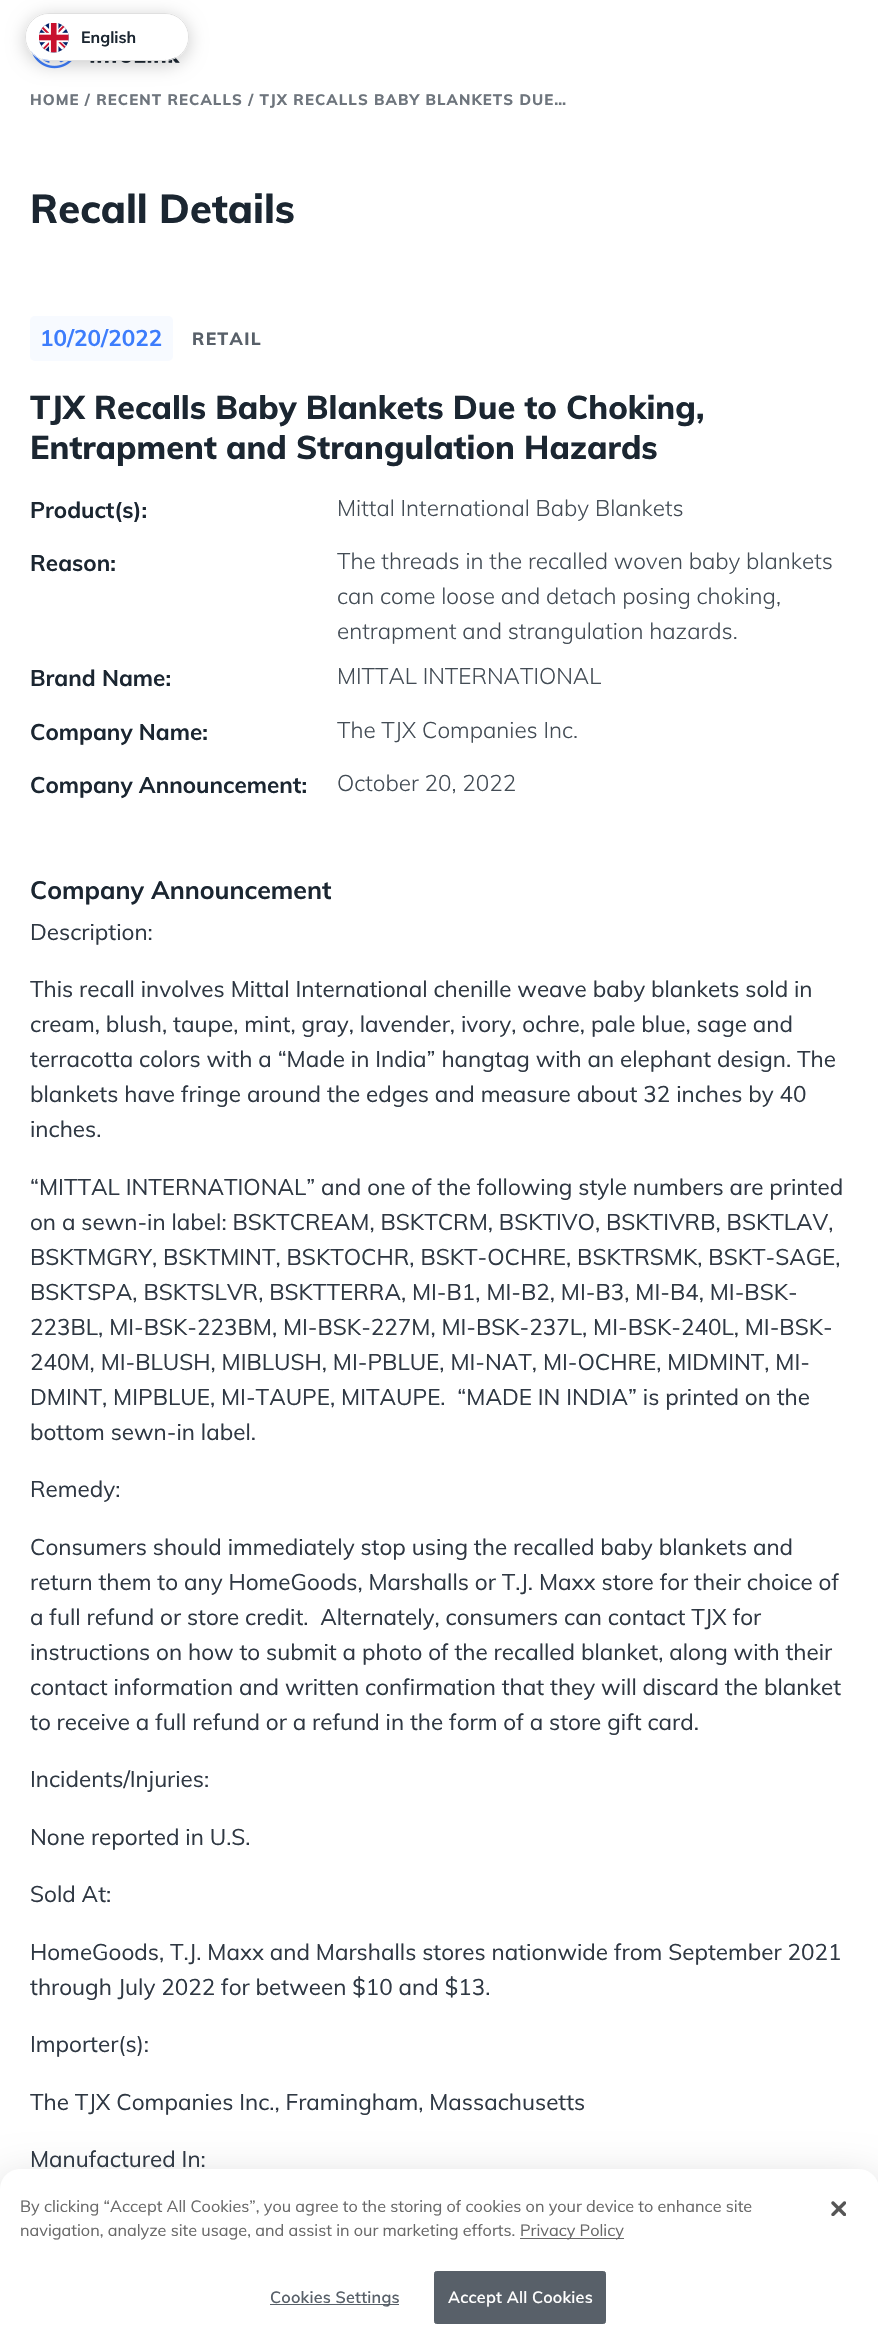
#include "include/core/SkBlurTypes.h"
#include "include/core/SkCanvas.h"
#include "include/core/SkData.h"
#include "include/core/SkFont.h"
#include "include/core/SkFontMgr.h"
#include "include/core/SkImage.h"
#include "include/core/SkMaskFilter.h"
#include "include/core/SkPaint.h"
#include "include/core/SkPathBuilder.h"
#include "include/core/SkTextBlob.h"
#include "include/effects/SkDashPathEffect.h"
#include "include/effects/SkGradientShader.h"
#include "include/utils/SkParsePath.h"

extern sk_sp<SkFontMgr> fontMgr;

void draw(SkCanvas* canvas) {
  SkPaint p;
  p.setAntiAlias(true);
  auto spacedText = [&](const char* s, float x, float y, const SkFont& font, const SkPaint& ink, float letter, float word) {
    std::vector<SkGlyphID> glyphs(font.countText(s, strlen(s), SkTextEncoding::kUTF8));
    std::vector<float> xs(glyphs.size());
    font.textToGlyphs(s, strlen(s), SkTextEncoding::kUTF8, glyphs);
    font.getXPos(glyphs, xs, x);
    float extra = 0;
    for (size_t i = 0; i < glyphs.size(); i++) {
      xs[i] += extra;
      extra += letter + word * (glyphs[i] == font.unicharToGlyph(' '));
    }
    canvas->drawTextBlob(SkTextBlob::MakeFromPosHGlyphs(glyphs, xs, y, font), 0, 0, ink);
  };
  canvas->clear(SK_ColorWHITE);
  canvas->drawImageRect(SkImages::DeferredFromEncodedData(SkData::MakeFromFileName("images/2.png")), SkRect::MakeLTRB(31, 51, 180, 69), SkSamplingOptions());
  canvas->save();
  canvas->clipPath(SkPathBuilder(SkPathFillType::kEvenOdd).moveTo(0, 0).lineTo(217, 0).lineTo(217, 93).lineTo(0, 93).close().moveTo(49, 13).lineTo(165, 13).cubicTo(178.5f, 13, 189, 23.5f, 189, 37).cubicTo(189, 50.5f, 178.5f, 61, 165, 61).lineTo(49, 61).cubicTo(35.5f, 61, 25, 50.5f, 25, 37).cubicTo(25, 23.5f, 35.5f, 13, 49, 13).close().detach(), true);
  p.setColor(SkColorSetARGB(51, 0, 0, 0));
  p.setMaskFilter(SkMaskFilter::MakeBlur(kNormal_SkBlurStyle, 9));
  canvas->drawRoundRect(SkRect::MakeLTRB(25, 16, 189, 65), 24.5f, 24.5f, p);
  p.setMaskFilter(nullptr);
  canvas->restore();
  p.setStyle(SkPaint::kStroke_Style);
  p.setStrokeWidth(1);
  p.setColor(SkColorSetRGB(224, 224, 224));
  canvas->drawRoundRect(SkRect::MakeLTRB(25.5f, 13.5f, 188.5f, 60.5f), 23.5f, 23.5f, p);
  p.setStyle(SkPaint::kFill_Style);
  p.setColor(SK_ColorWHITE);
  canvas->drawRoundRect(SkRect::MakeLTRB(26, 14, 188, 60), 23, 23, p);
  canvas->drawImageRect(SkImages::DeferredFromEncodedData(SkData::MakeFromFileName("images/1.png")), SkRect::MakeLTRB(39, 23, 69, 53), SkSamplingOptions());
  p.setColor(SkColorSetRGB(247, 250, 255));
  canvas->drawRoundRect(SkRect::MakeLTRB(30, 316, 173, 361), 5, 5, p);
  p.setColor(SkColorSetARGB(56, 0, 0, 0));
  p.setMaskFilter(SkMaskFilter::MakeBlur(kNormal_SkBlurStyle, 22.5f));
  canvas->drawRoundRect(SkRect::MakeLTRB(0, 2185, 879, 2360), 20, 20, p);
  p.setMaskFilter(nullptr);
  p.setColor(SK_ColorWHITE);
  canvas->drawPath(SkPathBuilder().moveTo(20, 2169).lineTo(859, 2169).cubicTo(870, 2169, 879, 2178, 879, 2189).lineTo(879, 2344).lineTo(0, 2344).lineTo(0, 2189).cubicTo(0, 2178, 9, 2169, 20, 2169).close().detach(), p);
  p.setColor(SkColorSetRGB(105, 105, 105));
  canvas->drawRect(SkRect::MakeLTRB(520, 2238, 624, 2239), p);
  p.setColor(SkColorSetRGB(88, 96, 105));
  canvas->drawRect(SkRect::MakeLTRB(270, 2304, 399, 2305), p);
  canvas->drawRoundRect(SkRect::MakeLTRB(434.5f, 2271.5f, 605.5f, 2323.5f), 2, 2, p);
  p.setStyle(SkPaint::kStroke_Style);
  canvas->drawRoundRect(SkRect::MakeLTRB(434.5f, 2271.5f, 605.5f, 2323.5f), 2, 2, p);
  canvas->drawImageRect(SkImages::DeferredFromEncodedData(SkData::MakeFromFileName("images/3.png")), SkRect::MakeLTRB(831, 2201, 846, 2216), SkSamplingOptions());
  SkFont font1(fontMgr->matchFamilyStyle("Muli", SkFontStyle::Bold()), 16);
  font1.setSubpixel(true);
  p.setStyle(SkPaint::kFill_Style);
  p.setColor(SkColorSetRGB(27, 38, 49));
  canvas->drawString("English", 81, 43, font1, p);
  SkFont font2(fontMgr->matchFamilyStyle("Muli", SkFontStyle(800, SkFontStyle::kNormal_Width, SkFontStyle::kUpright_Slant)), 15);
  font2.setSubpixel(true);
  p.setColor(SkColorSetRGB(110, 117, 125));
  spacedText("HOME / RECENT RECALLS / TJX RECALLS BABY BLANKETS DUE…", 30, 105, font2, p, 1.05f, 0);
  SkFont font3(fontMgr->matchFamilyStyle("Muli", SkFontStyle(800, SkFontStyle::kNormal_Width, SkFontStyle::kUpright_Slant)), 40);
  font3.setSubpixel(true);
  p.setColor(SkColorSetRGB(27, 38, 49));
  canvas->drawString("Recall Details", 30, 223, font3, p);
  SkFont font4(fontMgr->matchFamilyStyle("Muli", SkFontStyle::Bold()), 22.5f);
  font4.setSubpixel(true);
  p.setColor(SkColorSetRGB(61, 125, 252));
  canvas->drawString("10/20/2022", 40, 346, font4, p);
  SkFont font5(fontMgr->matchFamilyStyle("Muli", SkFontStyle(800, SkFontStyle::kNormal_Width, SkFontStyle::kUpright_Slant)), 17.5f);
  font5.setSubpixel(true);
  p.setColor(SkColorSetRGB(88, 96, 105));
  spacedText("RETAIL", 192, 345, font5, p, 1.25f, 0);
  SkFont font6(fontMgr->matchFamilyStyle("Muli", SkFontStyle(800, SkFontStyle::kNormal_Width, SkFontStyle::kUpright_Slant)), 32.5f);
  font6.setSubpixel(true);
  p.setColor(SkColorSetRGB(27, 38, 49));
  canvas->drawString("TJX Recalls Baby Blankets Due to Choking,", 30, 419, font6, p);
  canvas->drawString("Entrapment and Strangulation Hazards", 30, 459, font6, p);
  canvas->drawString("Product(s):", 30, 518, font4, p);
  SkFont font7(fontMgr->matchFamilyStyle("Muli", SkFontStyle(300, SkFontStyle::kNormal_Width, SkFontStyle::kUpright_Slant)), 22.5f);
  font7.setSubpixel(true);
  p.setColor(SkColorSetRGB(67, 76, 85));
  canvas->drawString("Mittal International Baby Blankets", 337, 516, font7, p);
  p.setColor(SkColorSetRGB(27, 38, 49));
  canvas->drawString("Reason:", 30, 571, font4, p);
  p.setColor(SkColorSetRGB(67, 76, 85));
  canvas->drawString("The threads in the recalled woven baby blankets", 337, 569, font7, p);
  canvas->drawString("can come loose and detach posing choking,", 337, 604, font7, p);
  canvas->drawString("entrapment and strangulation hazards.", 337, 639, font7, p);
  p.setColor(SkColorSetRGB(27, 38, 49));
  canvas->drawString("Brand Name:", 30, 686, font4, p);
  p.setColor(SkColorSetRGB(67, 76, 85));
  canvas->drawString("MITTAL INTERNATIONAL", 337, 684, font7, p);
  p.setColor(SkColorSetRGB(27, 38, 49));
  canvas->drawString("Company Name:", 30, 740, font4, p);
  p.setColor(SkColorSetRGB(67, 76, 85));
  canvas->drawString("The TJX Companies Inc.", 337, 738, font7, p);
  p.setColor(SkColorSetRGB(27, 38, 49));
  canvas->drawString("Company Announcement:", 30, 793, font4, p);
  p.setColor(SkColorSetRGB(67, 76, 85));
  canvas->drawString("October 20, 2022", 337, 791, font7, p);
  SkFont font8(fontMgr->matchFamilyStyle("Muli", SkFontStyle::Bold()), 25);
  font8.setSubpixel(true);
  p.setColor(SkColorSetRGB(27, 38, 49));
  canvas->drawString("Company Announcement", 30, 899, font8, p);
  SkFont font9(fontMgr->matchFamilyStyle("Muli", SkFontStyle::Normal()), 22.5f);
  font9.setSubpixel(true);
  p.setColor(SkColorSetRGB(47, 56, 67));
  canvas->drawString("Description:", 30, 940, font9, p);
  canvas->drawString("This recall involves Mittal International chenille weave baby blankets sold in", 30, 997, font9, p);
  canvas->drawString("cream, blush, taupe, mint, gray, lavender, ivory, ochre, pale blue, sage and", 30, 1032, font9, p);
  canvas->drawString("terracotta colors with a “Made in India” hangtag with an elephant design. The", 30, 1067, font9, p);
  canvas->drawString("blankets have fringe around the edges and measure about 32 inches by 40", 30, 1102, font9, p);
  canvas->drawString("inches.", 30, 1137, font9, p);
  canvas->drawString("“MITTAL INTERNATIONAL” and one of the following style numbers are printed", 30, 1195, font9, p);
  canvas->drawString("on a sewn-in label: BSKTCREAM, BSKTCRM, BSKTIVO, BSKTIVRB, BSKTLAV,", 30, 1230, font9, p);
  canvas->drawString("BSKTMGRY, BSKTMINT, BSKTOCHR, BSKT-OCHRE, BSKTRSMK, BSKT-SAGE,", 30, 1265, font9, p);
  canvas->drawString("BSKTSPA, BSKTSLVR, BSKTTERRA, MI-B1, MI-B2, MI-B3, MI-B4, MI-BSK-", 30, 1300, font9, p);
  canvas->drawString("223BL, MI-BSK-223BM, MI-BSK-227M, MI-BSK-237L, MI-BSK-240L, MI-BSK-", 30, 1335, font9, p);
  canvas->drawString("240M, MI-BLUSH, MIBLUSH, MI-PBLUE, MI-NAT, MI-OCHRE, MIDMINT, MI-", 30, 1370, font9, p);
  canvas->drawString("DMINT, MIPBLUE, MI-TAUPE, MITAUPE.  “MADE IN INDIA” is printed on the", 30, 1405, font9, p);
  canvas->drawString("bottom sewn-in label.", 30, 1440, font9, p);
  canvas->drawString("Remedy:", 30, 1497, font9, p);
  canvas->drawString("Consumers should immediately stop using the recalled baby blankets and", 30, 1555, font9, p);
  canvas->drawString("return them to any HomeGoods, Marshalls or T.J. Maxx store for their choice of", 30, 1590, font9, p);
  canvas->drawString("a full refund or store credit.  Alternately, consumers can contact TJX for", 30, 1625, font9, p);
  canvas->drawString("instructions on how to submit a photo of the recalled blanket, along with their", 30, 1660, font9, p);
  canvas->drawString("contact information and written confirmation that they will discard the blanket", 30, 1695, font9, p);
  canvas->drawString("to receive a full refund or a refund in the form of a store gift card.", 30, 1730, font9, p);
  canvas->drawString("Incidents/Injuries:", 30, 1787, font9, p);
  canvas->drawString("None reported in U.S.", 30, 1845, font9, p);
  canvas->drawString("Sold At:", 30, 1902, font9, p);
  canvas->drawString("HomeGoods, T.J. Maxx and Marshalls stores nationwide from September 2021", 30, 1960, font9, p);
  canvas->drawString("through July 2022 for between $10 and $13.", 30, 1995, font9, p);
  canvas->drawString("Importer(s):", 30, 2052, font9, p);
  canvas->drawString("The TJX Companies Inc., Framingham, Massachusetts", 30, 2110, font9, p);
  canvas->drawString("Manufactured In:", 30, 2167, font9, p);
  SkFont font10(fontMgr->matchFamilyStyle("Muli", SkFontStyle::Normal()), 16.25f);
  font10.setSubpixel(true);
  p.setColor(SkColorSetRGB(105, 105, 105));
  canvas->drawString("By clicking “Accept All Cookies”, you agree to the storing of cookies on your device to enhance site", 20, 2212, font10, p);
  canvas->drawString("navigation, analyze site usage, and assist in our marketing efforts.", 20, 2236, font10, p);
  canvas->drawString("Privacy Policy", 520, 2236, font10, p);
  SkFont font11(fontMgr->matchFamilyStyle("Muli", SkFontStyle(600, SkFontStyle::kNormal_Width, SkFontStyle::kUpright_Slant)), 16.25f);
  font11.setSubpixel(true);
  p.setColor(SkColorSetRGB(88, 96, 105));
  spacedText("Cookies Settings", 270, 2303, font11, p, 0.2f, 0);
  p.setColor(SK_ColorWHITE);
  spacedText("Accept All Cookies", 448, 2303, font11, p, 0.2f, 0);
}
